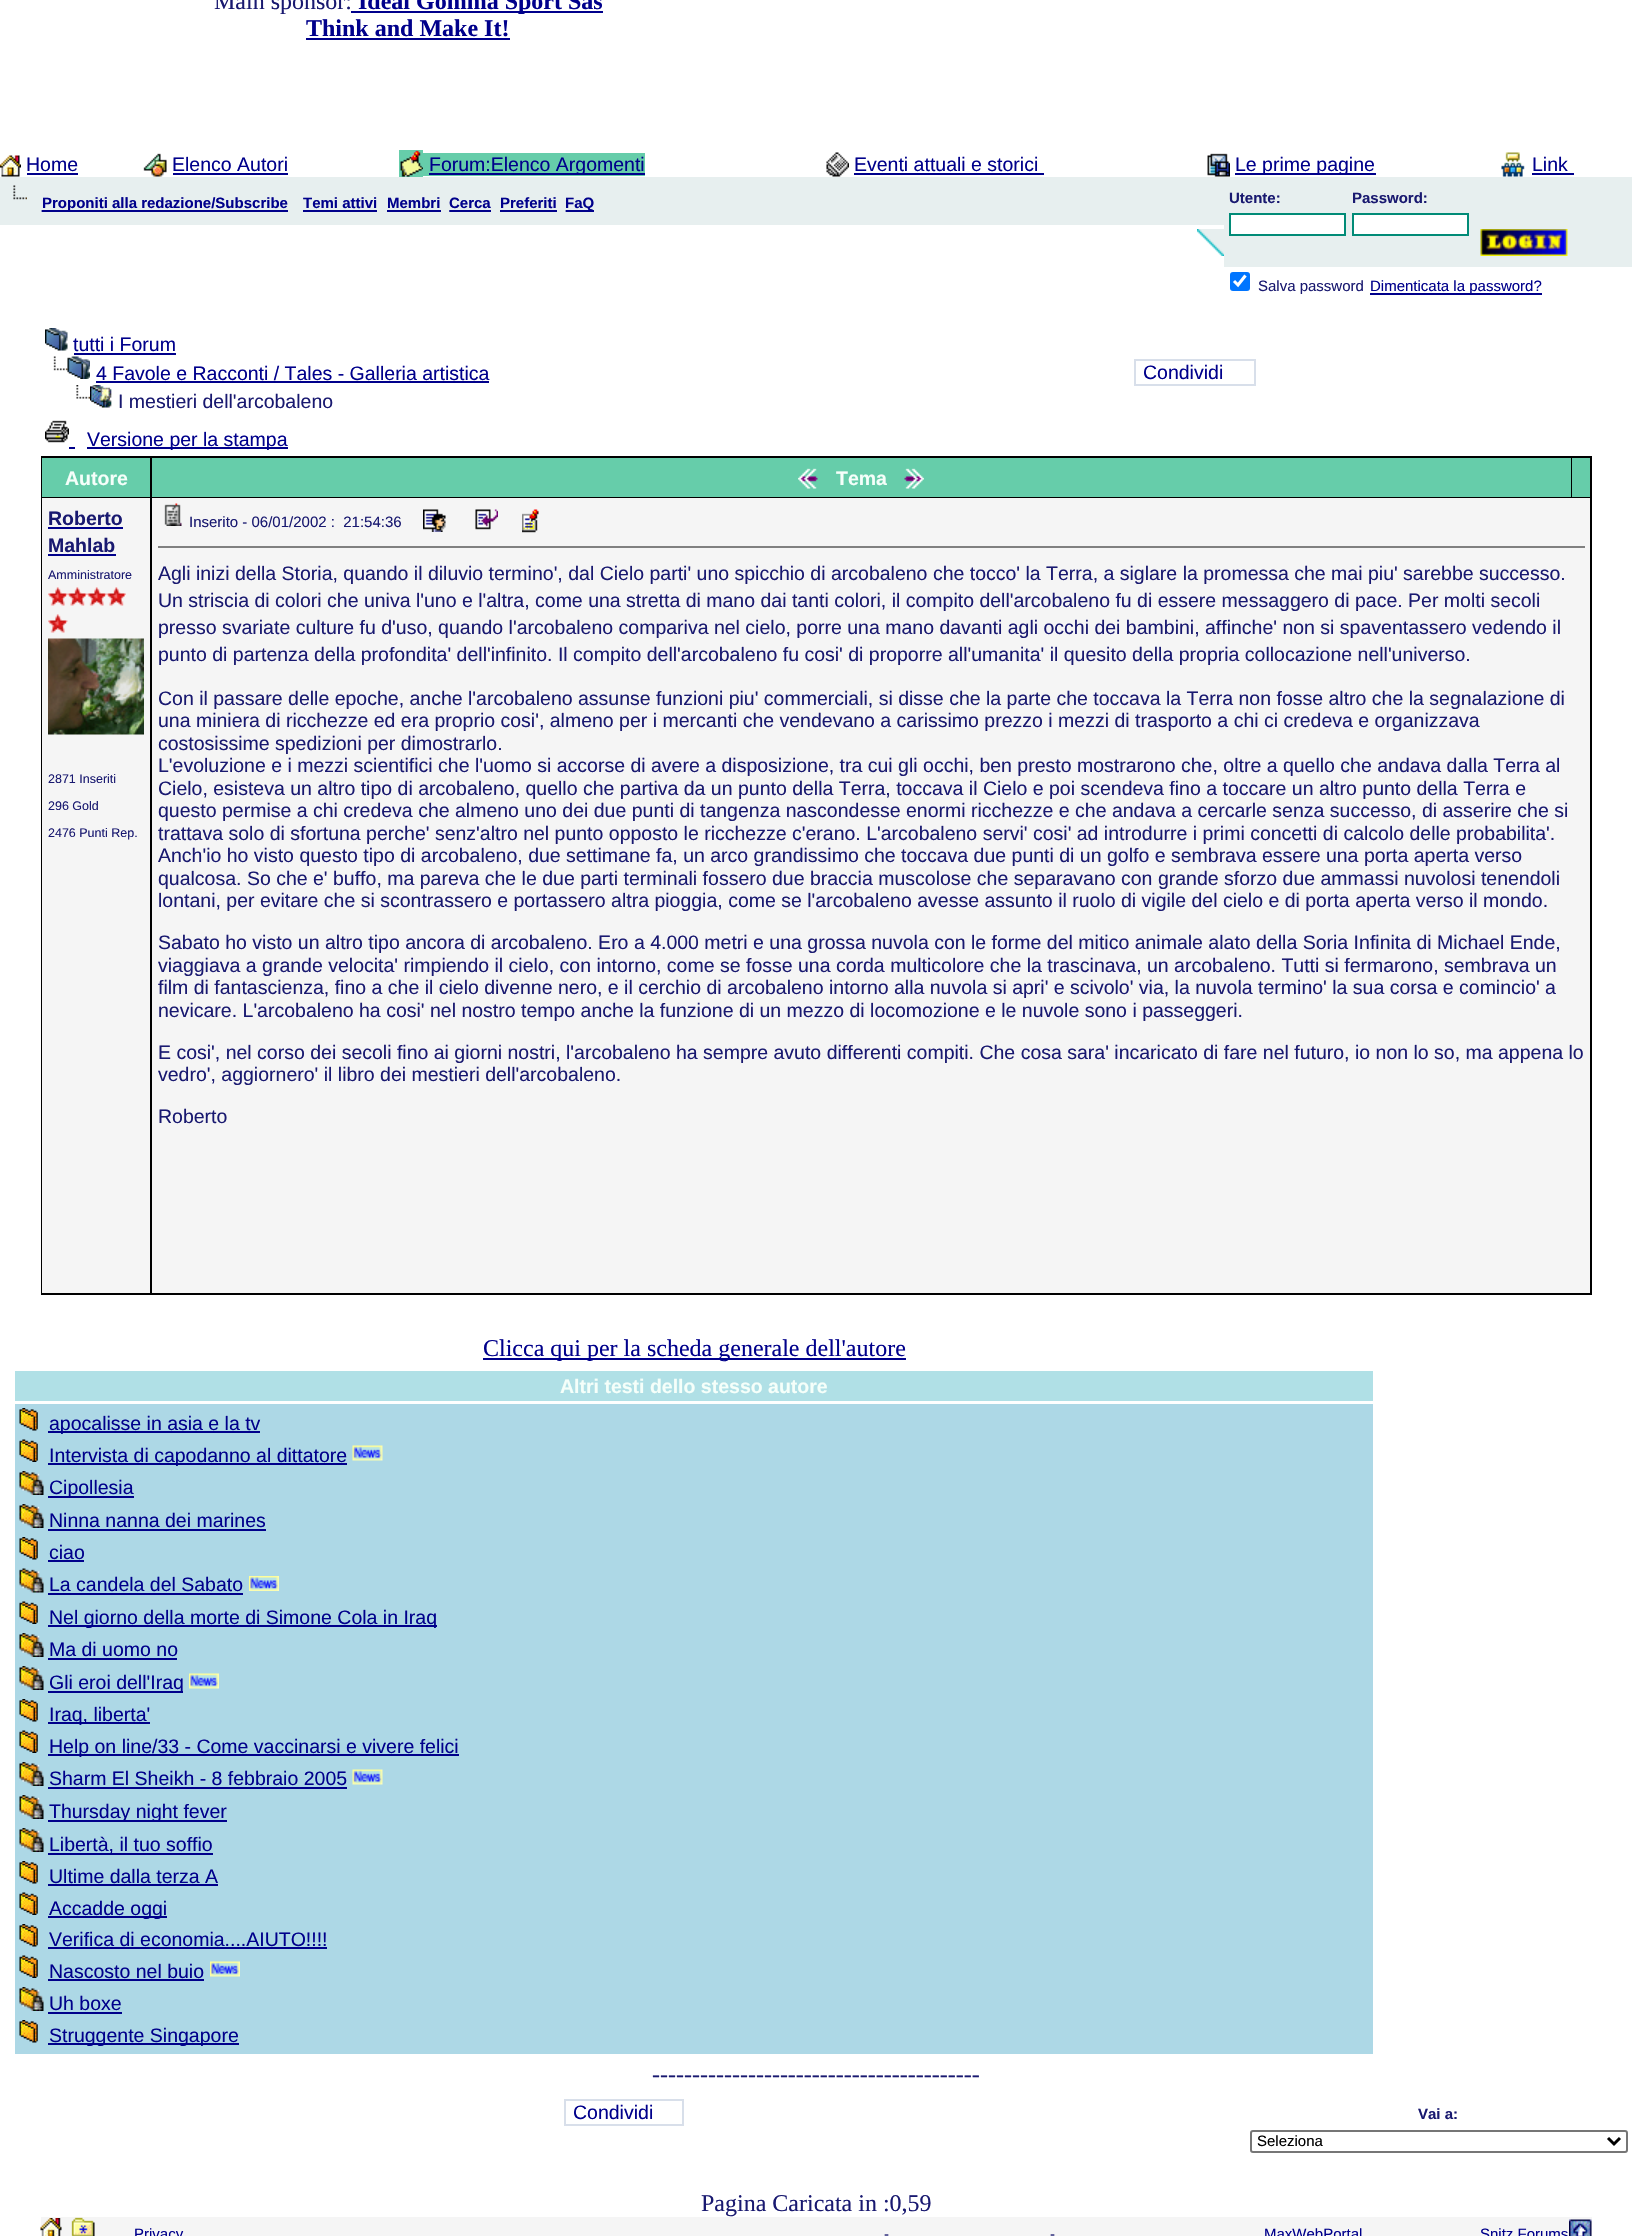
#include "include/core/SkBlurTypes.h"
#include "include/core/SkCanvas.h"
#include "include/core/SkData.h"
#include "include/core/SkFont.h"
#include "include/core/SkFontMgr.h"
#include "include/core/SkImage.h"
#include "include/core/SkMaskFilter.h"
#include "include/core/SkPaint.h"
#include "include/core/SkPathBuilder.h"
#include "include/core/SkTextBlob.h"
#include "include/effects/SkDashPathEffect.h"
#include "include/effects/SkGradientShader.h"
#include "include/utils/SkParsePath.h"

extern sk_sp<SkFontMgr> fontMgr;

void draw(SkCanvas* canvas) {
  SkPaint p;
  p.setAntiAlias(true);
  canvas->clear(SK_ColorWHITE);
  p.setColor(SkColorSetRGB(0, 0, 139));
  canvas->drawRect(SkRect::MakeLTRB(351, 11, 603, 13), p);
  canvas->drawRect(SkRect::MakeLTRB(306, 38, 510, 40), p);
  canvas->drawImageRect(SkImages::DeferredFromEncodedData(SkData::MakeFromFileName("images/1.png")), SkRect::MakeLTRB(0, 155, 21, 177), SkSamplingOptions());
  canvas->drawRect(SkRect::MakeLTRB(27, 173, 78, 175), p);
  canvas->drawImageRect(SkImages::DeferredFromEncodedData(SkData::MakeFromFileName("images/2.png")), SkRect::MakeLTRB(143, 153, 167, 177), SkSamplingOptions());
  canvas->drawRect(SkRect::MakeLTRB(173, 173, 288, 175), p);
  p.setColor(SkColorSetRGB(102, 205, 170));
  canvas->drawRect(SkRect::MakeLTRB(399, 150, 423, 177), p);
  canvas->drawImageRect(SkImages::DeferredFromEncodedData(SkData::MakeFromFileName("images/3.png")), SkRect::MakeLTRB(400, 150, 423, 177), SkSamplingOptions());
  canvas->drawRect(SkRect::MakeLTRB(423, 153, 645, 176), p);
  p.setColor(SkColorSetRGB(0, 0, 139));
  canvas->drawRect(SkRect::MakeLTRB(429, 173, 645, 175), p);
  canvas->drawImageRect(SkImages::DeferredFromEncodedData(SkData::MakeFromFileName("images/4.png")), SkRect::MakeLTRB(826, 152, 849, 177), SkSamplingOptions());
  canvas->drawRect(SkRect::MakeLTRB(854, 173, 1044, 175), p);
  canvas->drawImageRect(SkImages::DeferredFromEncodedData(SkData::MakeFromFileName("images/5.png")), SkRect::MakeLTRB(1207, 153, 1230, 177), SkSamplingOptions());
  canvas->drawRect(SkRect::MakeLTRB(1235, 173, 1376, 175), p);
  canvas->drawImageRect(SkImages::DeferredFromEncodedData(SkData::MakeFromFileName("images/6.png")), SkRect::MakeLTRB(1501, 152, 1525, 177), SkSamplingOptions());
  canvas->drawRect(SkRect::MakeLTRB(1532, 173, 1574, 175), p);
  p.setColor(SkColorSetRGB(231, 239, 239));
  canvas->drawRect(SkRect::MakeLTRB(0, 177, 1632, 267), p);
  canvas->drawImageRect(SkImages::DeferredFromEncodedData(SkData::MakeFromFileName("images/7.png")), SkRect::MakeLTRB(13, 185, 27, 200), SkSamplingOptions());
  p.setStyle(SkPaint::kStroke_Style);
  p.setStrokeWidth(1.5f);
  p.setColor(SkColorSetRGB(0, 0, 139));
  p.setPathEffect(SkDashPathEffect::Make({{1.5f, 1.5f}}, 0));
  canvas->drawPath(SkPathBuilder().moveTo(41.5f, 211).lineTo(287.5f, 211).detach(), p);
  p.setPathEffect(nullptr);
  p.setStyle(SkPaint::kFill_Style);
  canvas->drawRect(SkRect::MakeLTRB(42, 210, 288, 212), p);
  canvas->drawRect(SkRect::MakeLTRB(303, 210, 377, 212), p);
  canvas->drawRect(SkRect::MakeLTRB(387, 210, 441, 212), p);
  p.setStyle(SkPaint::kStroke_Style);
  p.setPathEffect(SkDashPathEffect::Make({{1.5f, 1.5f}}, 0));
  canvas->drawPath(SkPathBuilder().moveTo(449, 211).lineTo(491, 211).detach(), p);
  p.setPathEffect(nullptr);
  p.setStyle(SkPaint::kFill_Style);
  canvas->drawRect(SkRect::MakeLTRB(450, 210, 491, 212), p);
  canvas->drawRect(SkRect::MakeLTRB(500, 210, 557, 212), p);
  p.setStyle(SkPaint::kStroke_Style);
  p.setPathEffect(SkDashPathEffect::Make({{1.5f, 1.5f}}, 0));
  canvas->drawPath(SkPathBuilder().moveTo(565.5f, 211).lineTo(594.5f, 211).detach(), p);
  p.setPathEffect(nullptr);
  p.setStyle(SkPaint::kFill_Style);
  canvas->drawRect(SkRect::MakeLTRB(566, 210, 594, 212), p);
  p.setColor(SK_ColorWHITE);
  canvas->drawRect(SkRect::MakeLTRB(1230, 214, 1345, 235), p);
  p.setStyle(SkPaint::kStroke_Style);
  p.setStrokeWidth(2);
  p.setColor(SkColorSetRGB(1, 139, 119));
  canvas->drawRect(SkRect::MakeLTRB(1230, 214, 1345, 235), p);
  p.setStyle(SkPaint::kFill_Style);
  p.setColor(SK_ColorWHITE);
  canvas->drawRect(SkRect::MakeLTRB(1353, 214, 1468, 235), p);
  p.setStyle(SkPaint::kStroke_Style);
  p.setColor(SkColorSetRGB(1, 139, 119));
  canvas->drawRect(SkRect::MakeLTRB(1353, 214, 1468, 235), p);
  canvas->drawImageRect(SkImages::DeferredFromEncodedData(SkData::MakeFromFileName("images/8.png")), SkRect::MakeLTRB(1480, 229, 1568, 256), SkSamplingOptions());
  p.setStyle(SkPaint::kFill_Style);
  p.setColor(SK_ColorWHITE);
  canvas->drawRect(SkRect::MakeLTRB(0, 225, 1224, 267), p);
  canvas->drawImageRect(SkImages::DeferredFromEncodedData(SkData::MakeFromFileName("images/9.png")), SkRect::MakeLTRB(1197, 229, 1224, 256), SkSamplingOptions());
  p.setColor(SkColorSetRGB(0, 117, 255));
  canvas->drawRoundRect(SkRect::MakeLTRB(1230, 272, 1250, 291), 3, 3, p);
  p.setStyle(SkPaint::kStroke_Style);
  p.setStrokeWidth(3.1f);
  p.setColor(SK_ColorWHITE);
  canvas->drawPath(SkPathBuilder().moveTo(1234, 281).lineTo(1238, 285).lineTo(1245.5f, 275.5f).detach(), p);
  p.setStyle(SkPaint::kFill_Style);
  p.setColor(SkColorSetRGB(0, 0, 139));
  canvas->drawRect(SkRect::MakeLTRB(1370, 293, 1542, 295), p);
  canvas->drawImageRect(SkImages::DeferredFromEncodedData(SkData::MakeFromFileName("images/10.png")), SkRect::MakeLTRB(45, 328, 68, 351), SkSamplingOptions());
  canvas->drawRect(SkRect::MakeLTRB(74, 353, 176, 355), p);
  canvas->drawImageRect(SkImages::DeferredFromEncodedData(SkData::MakeFromFileName("images/11.png")), SkRect::MakeLTRB(53, 356, 68, 371), SkSamplingOptions());
  canvas->drawImageRect(SkImages::DeferredFromEncodedData(SkData::MakeFromFileName("images/12.png")), SkRect::MakeLTRB(67, 356, 90, 379), SkSamplingOptions());
  canvas->drawRect(SkRect::MakeLTRB(96, 381, 489, 383), p);
  canvas->drawImageRect(SkImages::DeferredFromEncodedData(SkData::MakeFromFileName("images/13.png")), SkRect::MakeLTRB(76, 385, 90, 399), SkSamplingOptions());
  canvas->drawImageRect(SkImages::DeferredFromEncodedData(SkData::MakeFromFileName("images/14.png")), SkRect::MakeLTRB(90, 385, 112, 408), SkSamplingOptions());
  p.setStyle(SkPaint::kStroke_Style);
  p.setStrokeWidth(2);
  p.setColor(SkColorSetRGB(216, 223, 234));
  canvas->drawRect(SkRect::MakeLTRB(1135, 360, 1255, 385), p);
  canvas->drawImageRect(SkImages::DeferredFromEncodedData(SkData::MakeFromFileName("images/15.png")), SkRect::MakeLTRB(45, 420, 69, 443), SkSamplingOptions());
  p.setStyle(SkPaint::kFill_Style);
  p.setColor(SkColorSetRGB(0, 0, 139));
  canvas->drawRect(SkRect::MakeLTRB(69, 447, 75, 449), p);
  canvas->drawRect(SkRect::MakeLTRB(87, 447, 288, 449), p);
  p.setColor(SK_ColorBLACK);
  canvas->drawRect(SkRect::MakeLTRB(41, 456, 1592, 1295), p);
  p.setColor(SkColorSetRGB(102, 205, 170));
  canvas->drawRect(SkRect::MakeLTRB(42, 458, 150, 497), p);
  canvas->drawRect(SkRect::MakeLTRB(152, 458, 1571, 497), p);
  canvas->drawImageRect(SkImages::DeferredFromEncodedData(SkData::MakeFromFileName("images/16.png")), SkRect::MakeLTRB(798, 468, 818, 489), SkSamplingOptions());
  canvas->drawImageRect(SkImages::DeferredFromEncodedData(SkData::MakeFromFileName("images/17.png")), SkRect::MakeLTRB(904, 468, 924, 489), SkSamplingOptions());
  canvas->drawRect(SkRect::MakeLTRB(1572, 458, 1590, 497), p);
  p.setColor(SkColorSetRGB(245, 245, 245));
  canvas->drawRect(SkRect::MakeLTRB(42, 498, 150, 1293), p);
  p.setColor(SkColorSetRGB(0, 0, 139));
  canvas->drawRect(SkRect::MakeLTRB(48, 527, 123, 529), p);
  canvas->drawRect(SkRect::MakeLTRB(48, 554, 116, 556), p);
  canvas->drawImageRect(SkImages::DeferredFromEncodedData(SkData::MakeFromFileName("images/18.png")), SkRect::MakeLTRB(48, 587, 68, 606), SkSamplingOptions());
  canvas->drawImageRect(SkImages::DeferredFromEncodedData(SkData::MakeFromFileName("images/19.png")), SkRect::MakeLTRB(67, 587, 87, 606), SkSamplingOptions());
  canvas->drawImageRect(SkImages::DeferredFromEncodedData(SkData::MakeFromFileName("images/18.png")), SkRect::MakeLTRB(87, 587, 107, 606), SkSamplingOptions());
  canvas->drawImageRect(SkImages::DeferredFromEncodedData(SkData::MakeFromFileName("images/19.png")), SkRect::MakeLTRB(106, 587, 126, 606), SkSamplingOptions());
  canvas->drawImageRect(SkImages::DeferredFromEncodedData(SkData::MakeFromFileName("images/18.png")), SkRect::MakeLTRB(48, 614, 68, 633), SkSamplingOptions());
  canvas->drawImageRect(SkImages::DeferredFromEncodedData(SkData::MakeFromFileName("images/20.png")), SkRect::MakeLTRB(48, 638, 144, 735), SkSamplingOptions());
  p.setColor(SkColorSetRGB(245, 245, 245));
  canvas->drawRect(SkRect::MakeLTRB(152, 498, 1590, 1293), p);
  canvas->drawImageRect(SkImages::DeferredFromEncodedData(SkData::MakeFromFileName("images/21.png")), SkRect::MakeLTRB(164, 503, 182, 526), SkSamplingOptions());
  canvas->drawImageRect(SkImages::DeferredFromEncodedData(SkData::MakeFromFileName("images/22.png")), SkRect::MakeLTRB(423, 509, 446, 532), SkSamplingOptions());
  canvas->drawImageRect(SkImages::DeferredFromEncodedData(SkData::MakeFromFileName("images/23.png")), SkRect::MakeLTRB(475, 509, 498, 530), SkSamplingOptions());
  canvas->drawImageRect(SkImages::DeferredFromEncodedData(SkData::MakeFromFileName("images/24.png")), SkRect::MakeLTRB(522, 509, 539, 533), SkSamplingOptions());
  p.setColor(SkColorSetRGB(128, 128, 128));
  canvas->drawRect(SkRect::MakeLTRB(158, 546, 1585, 548), p);
  p.setColor(SkColorSetRGB(0, 0, 139));
  canvas->drawRect(SkRect::MakeLTRB(483, 1358, 906, 1360), p);
  p.setColor(SkColorSetRGB(176, 224, 230));
  canvas->drawRect(SkRect::MakeLTRB(15, 1371, 1373, 1401), p);
  p.setColor(SkColorSetRGB(173, 216, 230));
  canvas->drawRect(SkRect::MakeLTRB(15, 1404, 1373, 2054), p);
  canvas->drawImageRect(SkImages::DeferredFromEncodedData(SkData::MakeFromFileName("images/25.png")), SkRect::MakeLTRB(19, 1408, 38, 1431), SkSamplingOptions());
  p.setColor(SkColorSetRGB(0, 0, 139));
  canvas->drawRect(SkRect::MakeLTRB(48, 1431, 260, 1433), p);
  canvas->drawImageRect(SkImages::DeferredFromEncodedData(SkData::MakeFromFileName("images/26.png")), SkRect::MakeLTRB(19, 1439, 38, 1462), SkSamplingOptions());
  canvas->drawRect(SkRect::MakeLTRB(48, 1463, 347, 1465), p);
  canvas->drawImageRect(SkImages::DeferredFromEncodedData(SkData::MakeFromFileName("images/27.png")), SkRect::MakeLTRB(352, 1445, 383, 1461), SkSamplingOptions());
  canvas->drawImageRect(SkImages::DeferredFromEncodedData(SkData::MakeFromFileName("images/28.png")), SkRect::MakeLTRB(19, 1471, 44, 1495), SkSamplingOptions());
  canvas->drawRect(SkRect::MakeLTRB(48, 1496, 134, 1498), p);
  canvas->drawImageRect(SkImages::DeferredFromEncodedData(SkData::MakeFromFileName("images/28.png")), SkRect::MakeLTRB(19, 1504, 44, 1528), SkSamplingOptions());
  canvas->drawRect(SkRect::MakeLTRB(48, 1529, 266, 1531), p);
  canvas->drawImageRect(SkImages::DeferredFromEncodedData(SkData::MakeFromFileName("images/25.png")), SkRect::MakeLTRB(19, 1537, 38, 1560), SkSamplingOptions());
  canvas->drawRect(SkRect::MakeLTRB(48, 1560, 84, 1562), p);
  canvas->drawImageRect(SkImages::DeferredFromEncodedData(SkData::MakeFromFileName("images/29.png")), SkRect::MakeLTRB(19, 1568, 44, 1593), SkSamplingOptions());
  canvas->drawRect(SkRect::MakeLTRB(48, 1593, 243, 1595), p);
  canvas->drawImageRect(SkImages::DeferredFromEncodedData(SkData::MakeFromFileName("images/30.png")), SkRect::MakeLTRB(249, 1576, 279, 1591), SkSamplingOptions());
  canvas->drawImageRect(SkImages::DeferredFromEncodedData(SkData::MakeFromFileName("images/26.png")), SkRect::MakeLTRB(19, 1601, 38, 1624), SkSamplingOptions());
  canvas->drawRect(SkRect::MakeLTRB(48, 1625, 437, 1627), p);
  canvas->drawImageRect(SkImages::DeferredFromEncodedData(SkData::MakeFromFileName("images/28.png")), SkRect::MakeLTRB(19, 1633, 44, 1657), SkSamplingOptions());
  canvas->drawRect(SkRect::MakeLTRB(48, 1658, 177, 1660), p);
  canvas->drawImageRect(SkImages::DeferredFromEncodedData(SkData::MakeFromFileName("images/28.png")), SkRect::MakeLTRB(19, 1666, 44, 1690), SkSamplingOptions());
  canvas->drawRect(SkRect::MakeLTRB(48, 1691, 183, 1693), p);
  canvas->drawImageRect(SkImages::DeferredFromEncodedData(SkData::MakeFromFileName("images/31.png")), SkRect::MakeLTRB(189, 1673, 219, 1689), SkSamplingOptions());
  canvas->drawImageRect(SkImages::DeferredFromEncodedData(SkData::MakeFromFileName("images/25.png")), SkRect::MakeLTRB(19, 1699, 38, 1722), SkSamplingOptions());
  canvas->drawRect(SkRect::MakeLTRB(48, 1722, 150, 1724), p);
  canvas->drawImageRect(SkImages::DeferredFromEncodedData(SkData::MakeFromFileName("images/26.png")), SkRect::MakeLTRB(19, 1730, 38, 1753), SkSamplingOptions());
  canvas->drawRect(SkRect::MakeLTRB(48, 1754, 459, 1756), p);
  canvas->drawImageRect(SkImages::DeferredFromEncodedData(SkData::MakeFromFileName("images/28.png")), SkRect::MakeLTRB(19, 1762, 44, 1786), SkSamplingOptions());
  canvas->drawRect(SkRect::MakeLTRB(48, 1787, 347, 1789), p);
  canvas->drawImageRect(SkImages::DeferredFromEncodedData(SkData::MakeFromFileName("images/27.png")), SkRect::MakeLTRB(352, 1769, 383, 1785), SkSamplingOptions());
  canvas->drawImageRect(SkImages::DeferredFromEncodedData(SkData::MakeFromFileName("images/28.png")), SkRect::MakeLTRB(19, 1795, 44, 1819), SkSamplingOptions());
  canvas->drawRect(SkRect::MakeLTRB(48, 1820, 227, 1822), p);
  canvas->drawImageRect(SkImages::DeferredFromEncodedData(SkData::MakeFromFileName("images/28.png")), SkRect::MakeLTRB(19, 1828, 44, 1852), SkSamplingOptions());
  canvas->drawRect(SkRect::MakeLTRB(48, 1853, 213, 1855), p);
  canvas->drawImageRect(SkImages::DeferredFromEncodedData(SkData::MakeFromFileName("images/25.png")), SkRect::MakeLTRB(19, 1861, 38, 1884), SkSamplingOptions());
  canvas->drawRect(SkRect::MakeLTRB(48, 1884, 218, 1886), p);
  canvas->drawImageRect(SkImages::DeferredFromEncodedData(SkData::MakeFromFileName("images/26.png")), SkRect::MakeLTRB(19, 1892, 38, 1915), SkSamplingOptions());
  canvas->drawRect(SkRect::MakeLTRB(48, 1916, 167, 1918), p);
  canvas->drawImageRect(SkImages::DeferredFromEncodedData(SkData::MakeFromFileName("images/25.png")), SkRect::MakeLTRB(19, 1924, 38, 1947), SkSamplingOptions());
  canvas->drawRect(SkRect::MakeLTRB(48, 1947, 327, 1949), p);
  canvas->drawImageRect(SkImages::DeferredFromEncodedData(SkData::MakeFromFileName("images/26.png")), SkRect::MakeLTRB(19, 1955, 38, 1978), SkSamplingOptions());
  canvas->drawRect(SkRect::MakeLTRB(48, 1979, 204, 1981), p);
  canvas->drawImageRect(SkImages::DeferredFromEncodedData(SkData::MakeFromFileName("images/31.png")), SkRect::MakeLTRB(210, 1961, 240, 1977), SkSamplingOptions());
  canvas->drawImageRect(SkImages::DeferredFromEncodedData(SkData::MakeFromFileName("images/28.png")), SkRect::MakeLTRB(19, 1987, 44, 2011), SkSamplingOptions());
  canvas->drawRect(SkRect::MakeLTRB(48, 2012, 122, 2014), p);
  canvas->drawImageRect(SkImages::DeferredFromEncodedData(SkData::MakeFromFileName("images/25.png")), SkRect::MakeLTRB(19, 2020, 38, 2043), SkSamplingOptions());
  canvas->drawRect(SkRect::MakeLTRB(48, 2043, 239, 2045), p);
  p.setStyle(SkPaint::kStroke_Style);
  p.setColor(SkColorSetRGB(216, 223, 234));
  canvas->drawRect(SkRect::MakeLTRB(565, 2100, 683, 2125), p);
  p.setColor(SkColorSetRGB(118, 118, 118));
  canvas->drawRoundRect(SkRect::MakeLTRB(1251, 2131, 1627, 2152), 2, 2, p);
  p.setStrokeWidth(3);
  p.setColor(SK_ColorBLACK);
  canvas->drawPath(SkPathBuilder().moveTo(1608, 2138).lineTo(1614, 2144).lineTo(1620, 2138).detach(), p);
  p.setStyle(SkPaint::kFill_Style);
  p.setColor(SkColorSetRGB(245, 245, 245));
  canvas->drawRect(SkRect::MakeLTRB(41, 2217, 1592, 2236), p);
  canvas->drawImageRect(SkImages::DeferredFromEncodedData(SkData::MakeFromFileName("images/32.png")), SkRect::MakeLTRB(40, 2218, 62, 2236), SkSamplingOptions());
  canvas->drawImageRect(SkImages::DeferredFromEncodedData(SkData::MakeFromFileName("images/33.png")), SkRect::MakeLTRB(71, 2217, 95, 2236), SkSamplingOptions());
  canvas->drawImageRect(SkImages::DeferredFromEncodedData(SkData::MakeFromFileName("images/34.png")), SkRect::MakeLTRB(1569, 2219, 1592, 2236), SkSamplingOptions());
  SkFont font1(fontMgr->matchFamilyStyle("Liberation Serif", SkFontStyle::Normal()), 24);
  font1.setSubpixel(true);
  p.setColor(SkColorSetRGB(25, 25, 112));
  canvas->drawString("Main sponsor:", 214, 9, font1, p);
  SkFont font2(fontMgr->matchFamilyStyle("Liberation Serif", SkFontStyle::Bold()), 24);
  font2.setSubpixel(true);
  p.setColor(SkColorSetRGB(0, 0, 139));
  canvas->drawString("Ideal Gomma Sport Sas", 358, 9, font2, p);
  canvas->drawString("Think and Make It!", 306, 36, font2, p);
  SkFont font3(fontMgr->matchFamilyStyle("Liberation Sans", SkFontStyle::Normal()), 19.5f);
  font3.setSubpixel(true);
  canvas->drawString("Home", 26, 171, font3, p);
  canvas->drawString("Elenco Autori", 172, 171, font3, p);
  canvas->drawString("Forum:Elenco Argomenti", 429, 171, font3, p);
  canvas->drawString("Eventi attuali e storici", 854, 171, font3, p);
  canvas->drawString("Le prime pagine", 1235, 171, font3, p);
  canvas->drawString("Link", 1532, 171, font3, p);
  SkFont font4(fontMgr->matchFamilyStyle("Liberation Sans", SkFontStyle::Bold()), 15);
  font4.setSubpixel(true);
  canvas->drawString("Proponiti alla redazione/Subscribe", 42, 208, font4, p);
  canvas->drawString("Temi attivi", 303, 208, font4, p);
  canvas->drawString("Membri", 387, 208, font4, p);
  canvas->drawString("Cerca", 449, 208, font4, p);
  canvas->drawString("Preferiti", 500, 208, font4, p);
  canvas->drawString("FaQ", 565, 208, font4, p);
  p.setColor(SkColorSetRGB(25, 25, 112));
  canvas->drawString("Utente:", 1229, 203, font4, p);
  canvas->drawString("Password:", 1352, 203, font4, p);
  SkFont font5(fontMgr->matchFamilyStyle("Liberation Sans", SkFontStyle::Normal()), 15);
  font5.setSubpixel(true);
  canvas->drawString("Salva password", 1258, 291, font5, p);
  p.setColor(SkColorSetRGB(0, 0, 139));
  canvas->drawString("Dimenticata la password?", 1370, 291, font5, p);
  canvas->drawString("tutti i Forum", 73, 351, font3, p);
  canvas->drawString("4 Favole e Racconti / Tales - Galleria artistica", 96, 380, font3, p);
  p.setColor(SkColorSetRGB(25, 25, 112));
  canvas->drawString("I mestieri dell'arcobaleno", 118, 408, font3, p);
  p.setColor(SkColorSetRGB(0, 0, 139));
  canvas->drawString("Condividi", 1143, 379, font3, p);
  canvas->drawString("Versione per la stampa", 87, 446, font3, p);
  SkFont font6(fontMgr->matchFamilyStyle("Liberation Sans", SkFontStyle::Bold()), 19.5f);
  font6.setSubpixel(true);
  p.setColor(SkColorSetRGB(245, 255, 250));
  canvas->drawString("Autore", 65, 485, font6, p);
  canvas->drawString("Tema", 836, 485, font6, p);
  p.setColor(SkColorSetRGB(25, 25, 112));
  canvas->drawString("Roberto", 48, 525, font6, p);
  canvas->drawString("Mahlab", 48, 552, font6, p);
  SkFont font7(fontMgr->matchFamilyStyle("Liberation Sans", SkFontStyle::Normal()), 12.5f);
  font7.setSubpixel(true);
  canvas->drawString("Amministratore", 48, 579, font7, p);
  canvas->drawString("2871 Inseriti", 48, 783, font7, p);
  canvas->drawString("296 Gold", 48, 810, font7, p);
  canvas->drawString("2476 Punti Rep.", 48, 837, font7, p);
  canvas->drawString("Inserito - 06/01/2002 :  21:54:36", 189, 527, font5, p);
  canvas->drawString("Agli inizi della Storia, quando il diluvio termino', dal Cielo parti' uno spicchio di arcobaleno che tocco' la Terra, a siglare la promessa che mai piu' sarebbe successo.", 158, 580, font3, p);
  canvas->drawString("Un striscia di colori che univa l'uno e l'altra, come una stretta di mano dai tanti colori, il compito dell'arcobaleno fu di essere messaggero di pace. Per molti secoli", 158, 607, font3, p);
  canvas->drawString("presso svariate culture fu d'uso, quando l'arcobaleno compariva nel cielo, porre una mano davanti agli occhi dei bambini, affinche' non si spaventassero vedendo il", 158, 634, font3, p);
  canvas->drawString("punto di partenza della profondita' dell'infinito. Il compito dell'arcobaleno fu cosi' di proporre all'umanita' il quesito della propria collocazione nell'universo.", 158, 661, font3, p);
  canvas->drawString("Con il passare delle epoche, anche l'arcobaleno assunse funzioni piu' commerciali, si disse che la parte che toccava la Terra non fosse altro che la segnalazione di", 158, 705, font3, p);
  canvas->drawString("una miniera di ricchezze ed era proprio cosi', almeno per i mercanti che vendevano a carissimo prezzo i mezzi di trasporto a chi ci credeva e organizzava", 158, 727, font3, p);
  canvas->drawString("costosissime spedizioni per dimostrarlo.", 158, 750, font3, p);
  canvas->drawString("L'evoluzione e i mezzi scientifici che l'uomo si accorse di avere a disposizione, tra cui gli occhi, ben presto mostrarono che, oltre a quello che andava dalla Terra al", 158, 772, font3, p);
  canvas->drawString("Cielo, esisteva un altro tipo di arcobaleno, quello che partiva da un punto della Terra, toccava il Cielo e poi scendeva fino a toccare un altro punto della Terra e", 158, 795, font3, p);
  canvas->drawString("questo permise a chi credeva che almeno uno dei due punti di tangenza nascondesse enormi ricchezze e che andava a cercarle senza successo, di asserire che si", 158, 817, font3, p);
  canvas->drawString("trattava solo di sfortuna perche' senz'altro nel punto opposto le ricchezze c'erano. L'arcobaleno servi' cosi' ad introdurre i primi concetti di calcolo delle probabilita'.", 158, 840, font3, p);
  canvas->drawString("Anch'io ho visto questo tipo di arcobaleno, due settimane fa, un arco grandissimo che toccava due punti di un golfo e sembrava essere una porta aperta verso", 158, 862, font3, p);
  canvas->drawString("qualcosa. So che e' buffo, ma pareva che le due parti terminali fossero due braccia muscolose che separavano con grande sforzo due ammassi nuvolosi tenendoli", 158, 885, font3, p);
  canvas->drawString("lontani, per evitare che si scontrassero e portassero altra pioggia, come se l'arcobaleno avesse assunto il ruolo di vigile del cielo e di porta aperta verso il mondo.", 158, 907, font3, p);
  canvas->drawString("Sabato ho visto un altro tipo ancora di arcobaleno. Ero a 4.000 metri e una grossa nuvola con le forme del mitico animale alato della Soria Infinita di Michael Ende,", 158, 949, font3, p);
  canvas->drawString("viaggiava a grande velocita' rimpiendo il cielo, con intorno, come se fosse una corda multicolore che la trascinava, un arcobaleno. Tutti si fermarono, sembrava un", 158, 972, font3, p);
  canvas->drawString("film di fantascienza, fino a che il cielo divenne nero, e il cerchio di arcobaleno intorno alla nuvola si apri' e scivolo' via, la nuvola termino' la sua corsa e comincio' a", 158, 994, font3, p);
  canvas->drawString("nevicare. L'arcobaleno ha cosi' nel nostro tempo anche la funzione di un mezzo di locomozione e le nuvole sono i passeggeri.", 158, 1017, font3, p);
  canvas->drawString("E cosi', nel corso dei secoli fino ai giorni nostri, l'arcobaleno ha sempre avuto differenti compiti. Che cosa sara' incaricato di fare nel futuro, io non lo so, ma appena lo", 158, 1059, font3, p);
  canvas->drawString("vedro', aggiornero' il libro dei mestieri dell'arcobaleno.", 158, 1081, font3, p);
  canvas->drawString("Roberto", 158, 1123, font3, p);
  p.setColor(SkColorSetRGB(0, 0, 139));
  canvas->drawString("Clicca qui per la scheda generale dell'autore", 483, 1356, font1, p);
  p.setColor(SkColorSetRGB(245, 255, 250));
  canvas->drawString("Altri testi dello stesso autore", 560, 1393, font6, p);
  p.setColor(SkColorSetRGB(0, 0, 139));
  canvas->drawString("apocalisse in asia e la tv", 49, 1430, font3, p);
  canvas->drawString("Intervista di capodanno al dittatore", 49, 1462, font3, p);
  canvas->drawString("Cipollesia", 49, 1494, font3, p);
  canvas->drawString("Ninna nanna dei marines", 49, 1527, font3, p);
  canvas->drawString("ciao", 49, 1559, font3, p);
  canvas->drawString("La candela del Sabato", 49, 1591, font3, p);
  canvas->drawString("Nel giorno della morte di Simone Cola in Iraq", 49, 1624, font3, p);
  canvas->drawString("Ma di uomo no", 49, 1656, font3, p);
  canvas->drawString("Gli eroi dell'Iraq", 49, 1689, font3, p);
  canvas->drawString("Iraq, liberta'", 49, 1721, font3, p);
  canvas->drawString("Help on line/33 - Come vaccinarsi e vivere felici", 49, 1753, font3, p);
  canvas->drawString("Sharm El Sheikh - 8 febbraio 2005", 49, 1785, font3, p);
  canvas->drawString("Thursday night fever", 49, 1818, font3, p);
  canvas->drawString("Libertà, il tuo soffio", 49, 1851, font3, p);
  canvas->drawString("Ultime dalla terza A", 49, 1883, font3, p);
  canvas->drawString("Accadde oggi", 49, 1915, font3, p);
  canvas->drawString("Verifica di economia....AIUTO!!!!", 49, 1946, font3, p);
  canvas->drawString("Nascosto nel buio", 49, 1978, font3, p);
  canvas->drawString("Uh boxe", 49, 2010, font3, p);
  canvas->drawString("Struggente Singapore", 49, 2042, font3, p);
  p.setColor(SkColorSetRGB(25, 25, 112));
  canvas->drawString("-----------------------------------------", 652, 2082, font1, p);
  p.setColor(SkColorSetRGB(0, 0, 139));
  canvas->drawString("Condividi", 573, 2119, font3, p);
  p.setColor(SkColorSetRGB(25, 25, 112));
  canvas->drawString("Vai a:", 1418, 2119, font4, p);
  p.setColor(SK_ColorBLACK);
  canvas->drawString("Seleziona", 1257, 2146, font5, p);
  p.setColor(SkColorSetRGB(25, 25, 112));
  canvas->drawString("Pagina Caricata in :0,59", 701, 2211, font1, p);
  p.setColor(SkColorSetRGB(0, 0, 139));
  canvas->drawString("Privacy", 134, 2239, font5, p);
  p.setColor(SkColorSetRGB(25, 25, 112));
  canvas->drawString("-", 884, 2239, font5, p);
  canvas->drawString("-", 1050, 2239, font5, p);
  p.setColor(SkColorSetRGB(0, 0, 139));
  canvas->drawString("MaxWebPortal", 1264, 2239, font5, p);
  canvas->drawString("Snitz Forums", 1480, 2239, font5, p);
}
